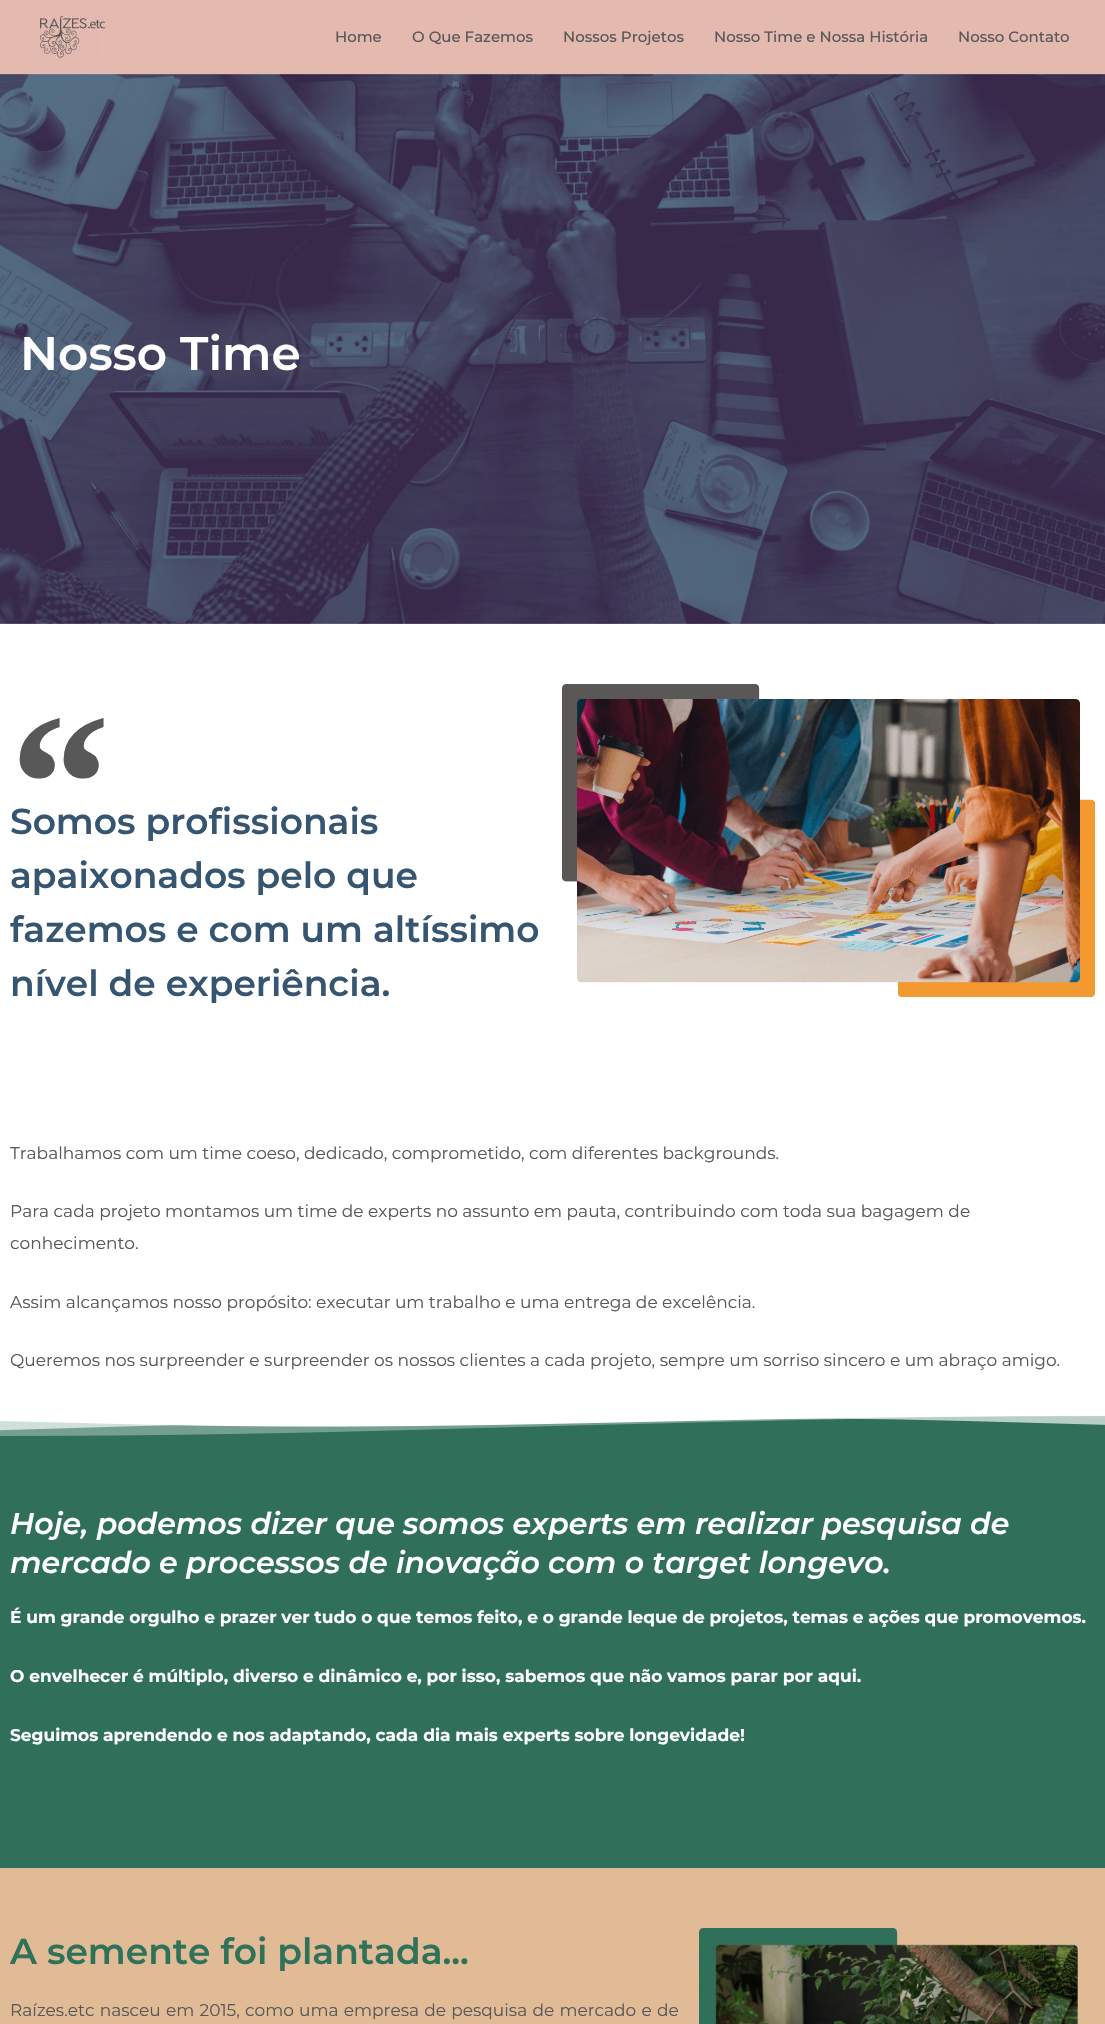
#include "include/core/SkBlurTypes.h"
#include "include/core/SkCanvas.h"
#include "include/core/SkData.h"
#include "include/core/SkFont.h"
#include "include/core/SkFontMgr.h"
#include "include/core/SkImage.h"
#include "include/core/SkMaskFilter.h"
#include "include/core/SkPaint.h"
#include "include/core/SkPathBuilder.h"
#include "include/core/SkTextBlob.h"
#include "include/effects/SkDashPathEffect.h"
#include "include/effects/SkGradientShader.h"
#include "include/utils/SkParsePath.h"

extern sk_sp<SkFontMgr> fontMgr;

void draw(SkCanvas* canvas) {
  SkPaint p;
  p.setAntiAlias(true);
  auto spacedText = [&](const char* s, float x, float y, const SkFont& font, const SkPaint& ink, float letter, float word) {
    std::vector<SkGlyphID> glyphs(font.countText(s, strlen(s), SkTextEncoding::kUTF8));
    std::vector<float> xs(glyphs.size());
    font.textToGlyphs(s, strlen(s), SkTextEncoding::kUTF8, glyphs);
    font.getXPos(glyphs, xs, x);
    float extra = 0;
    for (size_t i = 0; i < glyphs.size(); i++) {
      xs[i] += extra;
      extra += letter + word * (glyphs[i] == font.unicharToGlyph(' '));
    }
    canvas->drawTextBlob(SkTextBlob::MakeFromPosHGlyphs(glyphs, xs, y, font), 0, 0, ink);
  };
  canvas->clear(SK_ColorWHITE);
  p.setColor(SkColorSetRGB(228, 185, 176));
  canvas->drawRect(SkRect::MakeLTRB(0, 0, 1105, 74), p);
  canvas->drawImageRect(SkImages::DeferredFromEncodedData(SkData::MakeFromFileName("images/1.png")), SkRect::MakeLTRB(36, 15, 108, 59), SkSamplingOptions());
  canvas->drawImageRect(SkImages::DeferredFromEncodedData(SkData::MakeFromFileName("images/2.png")), SkRect::MakeLTRB(0, 74, 1105, 624), SkSamplingOptions());
  canvas->drawImageRect(SkImages::DeferredFromEncodedData(SkData::MakeFromFileName("images/3.png")), SkRect::MakeLTRB(562, 684, 1095, 997), SkSamplingOptions());
  p.setColor(SkColorSetRGB(48, 111, 90));
  canvas->drawRect(SkRect::MakeLTRB(0, 1416, 1105, 1868), p);
  canvas->drawImageRect(SkImages::DeferredFromEncodedData(SkData::MakeFromFileName("images/4.png")), SkRect::MakeLTRB(0, 1414, 1105, 1436), SkSamplingOptions());
  p.setColor(SkColorSetRGB(224, 187, 150));
  canvas->drawRect(SkRect::MakeLTRB(0, 1868, 1105, 2024), p);
  canvas->drawImageRect(SkImages::DeferredFromEncodedData(SkData::MakeFromFileName("images/5.png")), SkRect::MakeLTRB(699, 1928, 1078, 2024), SkSamplingOptions());
  SkFont font1(fontMgr->matchFamilyStyle("Montserrat", SkFontStyle(500, SkFontStyle::kNormal_Width, SkFontStyle::kUpright_Slant)), 15);
  font1.setSubpixel(true);
  p.setColor(SkColorSetRGB(88, 88, 88));
  canvas->drawString("Home", 335, 42, font1, p);
  canvas->drawString("O Que Fazemos", 412, 42, font1, p);
  canvas->drawString("Nossos Projetos", 563, 42, font1, p);
  canvas->drawString("Nosso Time e Nossa História", 714, 42, font1, p);
  canvas->drawString("Nosso Contato", 958, 42, font1, p);
  SkFont font2(fontMgr->matchFamilyStyle("Montserrat", SkFontStyle(600, SkFontStyle::kNormal_Width, SkFontStyle::kUpright_Slant)), 47);
  font2.setSubpixel(true);
  p.setColor(SK_ColorWHITE);
  canvas->drawString("Nosso Time", 20, 370, font2, p);
  SkFont font3(fontMgr->matchFamilyStyle("Liberation Serif", SkFontStyle::Bold()), 200);
  font3.setSubpixel(true);
  p.setColor(SkColorSetRGB(88, 88, 88));
  canvas->drawString("“", 10, 851, font3, p);
  SkFont font4(fontMgr->matchFamilyStyle("Montserrat", SkFontStyle(600, SkFontStyle::kNormal_Width, SkFontStyle::kUpright_Slant)), 36);
  font4.setSubpixel(true);
  p.setColor(SkColorSetRGB(53, 85, 112));
  canvas->drawString("Somos profissionais", 10, 834, font4, p);
  canvas->drawString("apaixonados pelo que", 10, 888, font4, p);
  canvas->drawString("fazemos e com um altíssimo", 10, 942, font4, p);
  canvas->drawString("nível de experiência.", 10, 996, font4, p);
  SkFont font5(fontMgr->matchFamilyStyle("Montserrat", SkFontStyle::Normal()), 17);
  font5.setSubpixel(true);
  p.setColor(SkColorSetRGB(88, 88, 88));
  canvas->drawString("Trabalhamos com um time coeso, dedicado, comprometido, com diferentes backgrounds.", 10, 1159, font5, p);
  canvas->drawString("Para cada projeto montamos um time de experts no assunto em pauta, contribuindo com toda sua bagagem de", 10, 1217, font5, p);
  canvas->drawString("conhecimento.", 10, 1249, font5, p);
  canvas->drawString("Assim alcançamos nosso propósito: executar um trabalho e uma entrega de excelência.", 10, 1308, font5, p);
  canvas->drawString("Queremos nos surpreender e surpreender os nossos clientes a cada projeto, sempre um sorriso sincero e um abraço amigo.", 10, 1366, font5, p);
  SkFont font6(fontMgr->matchFamilyStyle("Montserrat", SkFontStyle(600, SkFontStyle::kNormal_Width, SkFontStyle::kItalic_Slant)), 30);
  font6.setSubpixel(true);
  p.setColor(SK_ColorWHITE);
  canvas->drawString("Hoje, podemos dizer que somos experts em realizar pesquisa de", 10, 1534, font6, p);
  canvas->drawString("mercado e processos de inovação com o target longevo.", 10, 1573, font6, p);
  SkFont font7(fontMgr->matchFamilyStyle("Montserrat", SkFontStyle::Bold()), 17);
  font7.setSubpixel(true);
  canvas->drawString("É um grande orgulho e prazer ver tudo o que temos feito, e o grande leque de projetos, temas e ações que promovemos.", 10, 1623, font7, p);
  canvas->drawString("O envelhecer é múltiplo, diverso e dinâmico e, por isso, sabemos que não vamos parar por aqui.", 10, 1682, font7, p);
  canvas->drawString("Seguimos aprendendo e nos adaptando, cada dia mais experts sobre longevidade!", 10, 1741, font7, p);
  p.setColor(SkColorSetRGB(48, 113, 90));
  canvas->drawString("A semente foi plantada...", 10, 1964, font4, p);
  p.setColor(SkColorSetRGB(88, 88, 88));
  spacedText("Raízes.etc nasceu em 2015, como uma empresa de pesquisa de mercado e de", 10, 2016, font5, p, 0, 0.75f);
}
